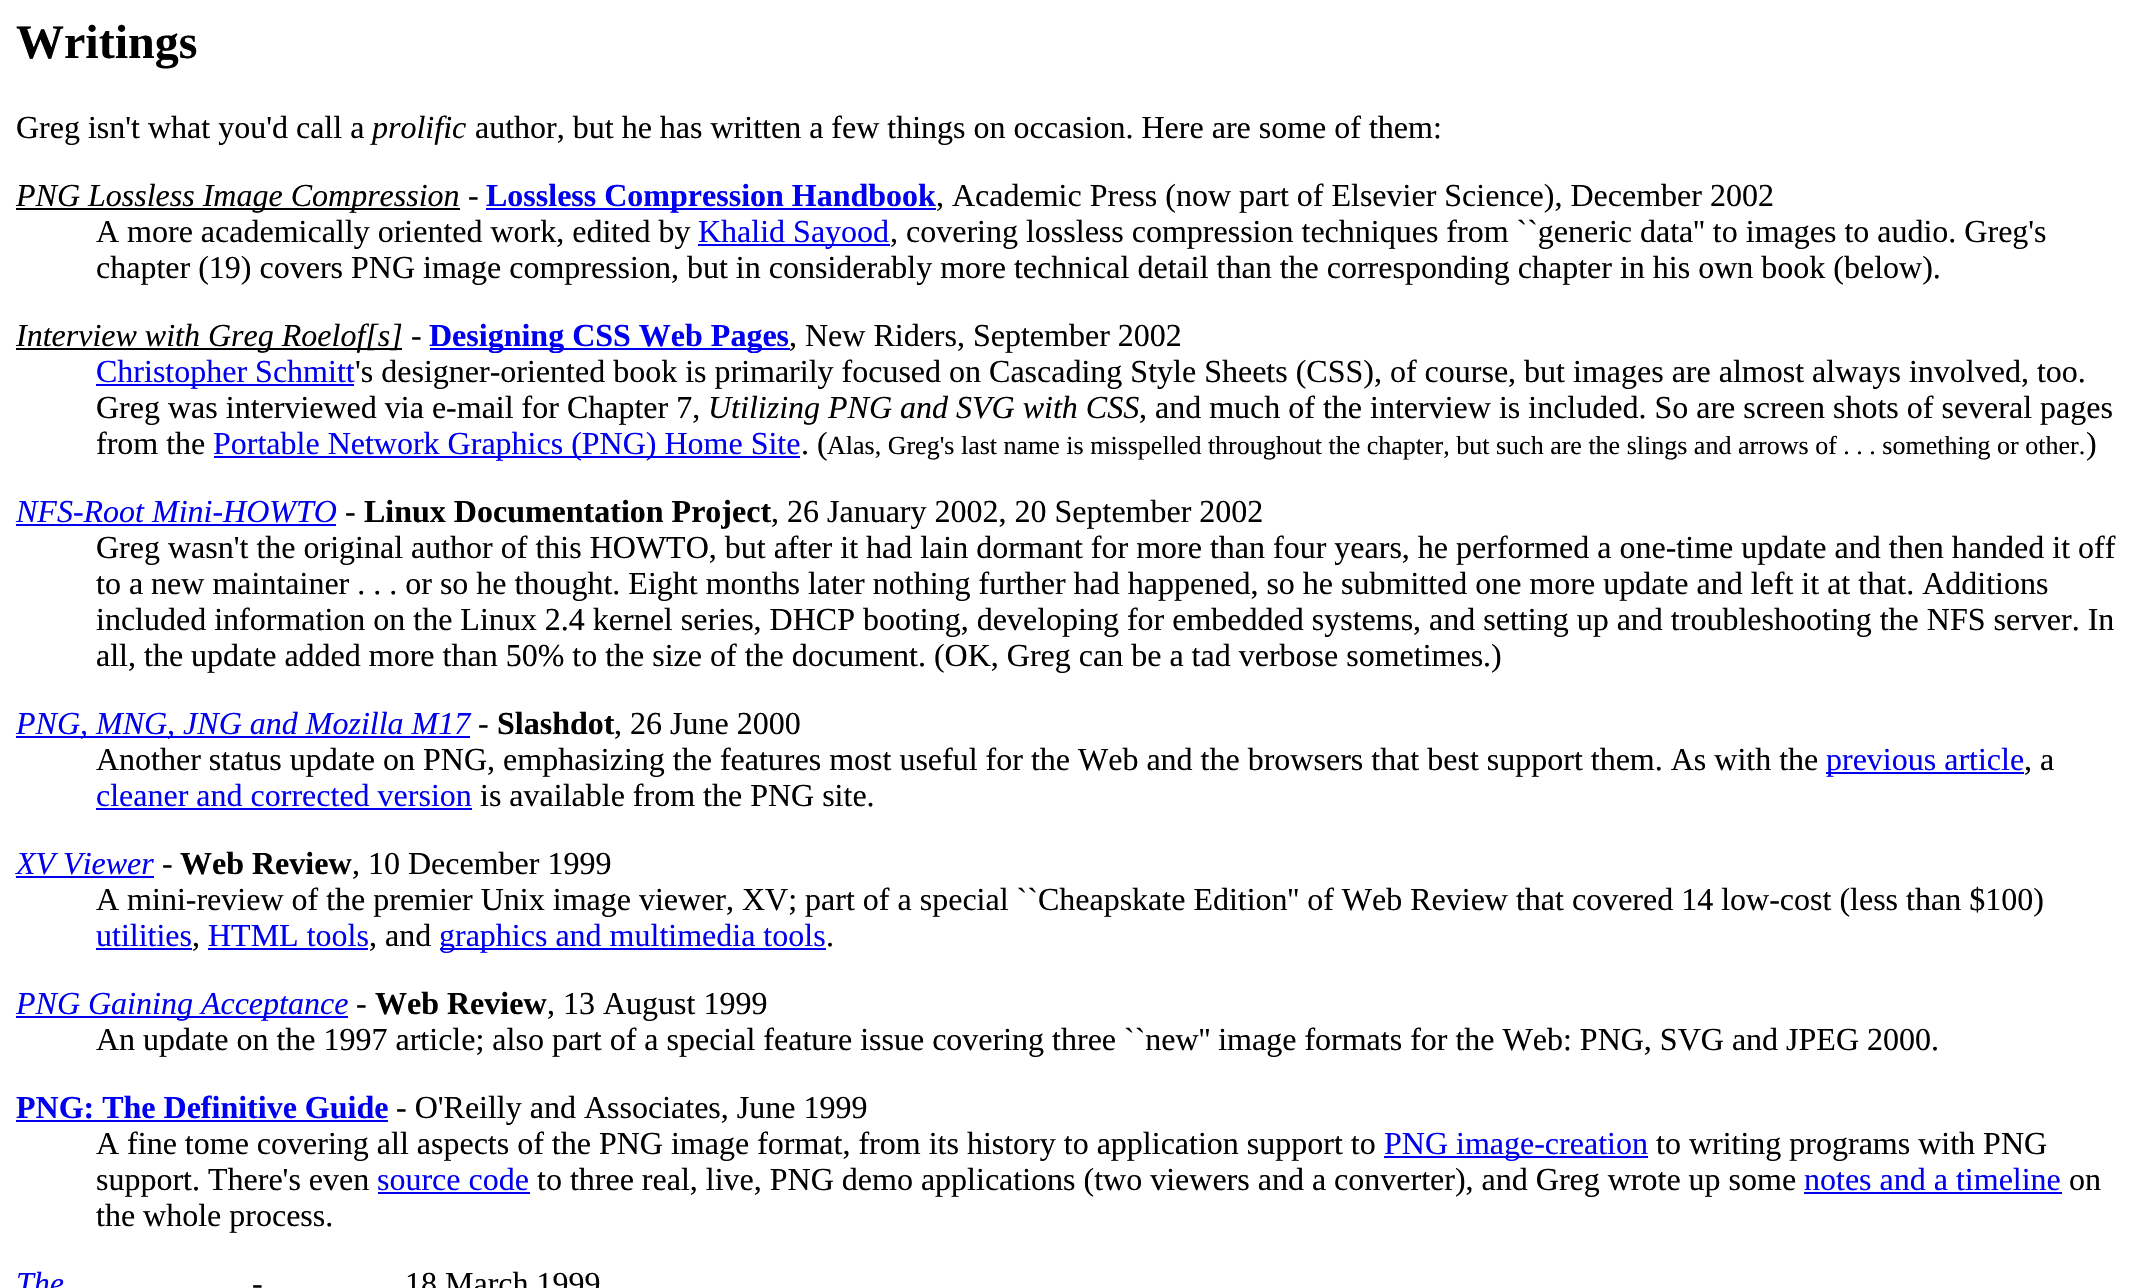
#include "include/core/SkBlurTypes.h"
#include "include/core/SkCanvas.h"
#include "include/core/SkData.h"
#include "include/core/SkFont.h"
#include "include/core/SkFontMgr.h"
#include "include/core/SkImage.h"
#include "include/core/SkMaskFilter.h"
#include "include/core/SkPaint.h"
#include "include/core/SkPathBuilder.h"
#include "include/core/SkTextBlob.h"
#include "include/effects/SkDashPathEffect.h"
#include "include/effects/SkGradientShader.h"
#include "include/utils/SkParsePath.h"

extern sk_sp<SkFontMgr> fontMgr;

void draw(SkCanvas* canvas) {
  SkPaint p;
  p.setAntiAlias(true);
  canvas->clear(SK_ColorWHITE);
  p.setColor(SK_ColorBLACK);
  canvas->drawRect(SkRect::MakeLTRB(16, 208, 460, 210), p);
  p.setColor(SkColorSetRGB(0, 0, 238));
  canvas->drawRect(SkRect::MakeLTRB(486, 208, 936, 210), p);
  canvas->drawRect(SkRect::MakeLTRB(698, 244, 890, 246), p);
  p.setColor(SK_ColorBLACK);
  canvas->drawRect(SkRect::MakeLTRB(16, 348, 402, 350), p);
  p.setColor(SkColorSetRGB(0, 0, 238));
  canvas->drawRect(SkRect::MakeLTRB(430, 348, 790, 350), p);
  canvas->drawRect(SkRect::MakeLTRB(96, 384, 354, 386), p);
  canvas->drawRect(SkRect::MakeLTRB(214, 456, 800, 458), p);
  canvas->drawRect(SkRect::MakeLTRB(16, 524, 336, 526), p);
  canvas->drawRect(SkRect::MakeLTRB(16, 736, 470, 738), p);
  canvas->drawRect(SkRect::MakeLTRB(1826, 772, 2024, 774), p);
  canvas->drawRect(SkRect::MakeLTRB(96, 808, 472, 810), p);
  canvas->drawRect(SkRect::MakeLTRB(16, 876, 154, 878), p);
  canvas->drawRect(SkRect::MakeLTRB(96, 948, 192, 950), p);
  canvas->drawRect(SkRect::MakeLTRB(208, 948, 368, 950), p);
  canvas->drawRect(SkRect::MakeLTRB(440, 948, 826, 950), p);
  canvas->drawRect(SkRect::MakeLTRB(16, 1016, 348, 1018), p);
  canvas->drawRect(SkRect::MakeLTRB(16, 1120, 388, 1122), p);
  canvas->drawRect(SkRect::MakeLTRB(1384, 1156, 1648, 1158), p);
  canvas->drawRect(SkRect::MakeLTRB(378, 1192, 530, 1194), p);
  canvas->drawRect(SkRect::MakeLTRB(1804, 1192, 2062, 1194), p);
  SkFont font1(fontMgr->matchFamilyStyle("Liberation Serif", SkFontStyle::Bold()), 48);
  font1.setSubpixel(true);
  p.setColor(SK_ColorBLACK);
  canvas->drawString("Writings", 16, 58, font1, p);
  SkFont font2(fontMgr->matchFamilyStyle("Liberation Serif", SkFontStyle::Normal()), 32);
  font2.setSubpixel(true);
  canvas->drawString("Greg isn't what you'd call a", 16, 138, font2, p);
  SkFont font3(fontMgr->matchFamilyStyle("Liberation Serif", SkFontStyle::Italic()), 32);
  font3.setSubpixel(true);
  canvas->drawString("prolific", 372, 138, font3, p);
  canvas->drawString("author, but he has written a few things on occasion. Here are some of them:", 475, 138, font2, p);
  canvas->drawString("PNG Lossless Image Compression", 16, 206, font3, p);
  canvas->drawString("-", 468, 206, font2, p);
  SkFont font4(fontMgr->matchFamilyStyle("Liberation Serif", SkFontStyle::Bold()), 32);
  font4.setSubpixel(true);
  p.setColor(SkColorSetRGB(0, 0, 238));
  canvas->drawString("Lossless Compression Handbook", 486, 206, font4, p);
  p.setColor(SK_ColorBLACK);
  canvas->drawString(", Academic Press (now part of Elsevier Science), December 2002", 936, 206, font2, p);
  canvas->drawString("A more academically oriented work, edited by", 96, 242, font2, p);
  p.setColor(SkColorSetRGB(0, 0, 238));
  canvas->drawString("Khalid Sayood", 698, 242, font2, p);
  p.setColor(SK_ColorBLACK);
  canvas->drawString(", covering lossless compression techniques from ``generic data'' to images to audio. Greg's", 890, 242, font2, p);
  canvas->drawString("chapter (19) covers PNG image compression, but in considerably more technical detail than the corresponding chapter in his own book (below).", 96, 278, font2, p);
  canvas->drawString("Interview with Greg Roelof[s]", 16, 346, font3, p);
  canvas->drawString("-", 411, 346, font2, p);
  p.setColor(SkColorSetRGB(0, 0, 238));
  canvas->drawString("Designing CSS Web Pages", 429, 346, font4, p);
  p.setColor(SK_ColorBLACK);
  canvas->drawString(", New Riders, September 2002", 789, 346, font2, p);
  p.setColor(SkColorSetRGB(0, 0, 238));
  canvas->drawString("Christopher Schmitt", 96, 382, font2, p);
  p.setColor(SK_ColorBLACK);
  canvas->drawString("'s designer-oriented book is primarily focused on Cascading Style Sheets (CSS), of course, but images are almost always involved, too.", 355, 382, font2, p);
  canvas->drawString("Greg was interviewed via e-mail for Chapter 7,", 96, 418, font2, p);
  canvas->drawString("Utilizing PNG and SVG with CSS", 708, 418, font3, p);
  canvas->drawString(", and much of the interview is included. So are screen shots of several pages", 1139, 418, font2, p);
  canvas->drawString("from the", 96, 454, font2, p);
  p.setColor(SkColorSetRGB(0, 0, 238));
  canvas->drawString("Portable Network Graphics (PNG) Home Site", 213, 454, font2, p);
  p.setColor(SK_ColorBLACK);
  canvas->drawString(". (", 801, 454, font2, p);
  SkFont font5(fontMgr->matchFamilyStyle("Liberation Serif", SkFontStyle::Normal()), 26);
  font5.setSubpixel(true);
  canvas->drawString("Alas, Greg's last name is misspelled throughout the chapter, but such are the slings and arrows of . . . something or other.", 827, 454, font5, p);
  canvas->drawString(")", 2086, 454, font2, p);
  p.setColor(SkColorSetRGB(0, 0, 238));
  canvas->drawString("NFS-Root Mini-HOWTO", 16, 522, font3, p);
  p.setColor(SK_ColorBLACK);
  canvas->drawString("-", 345, 522, font2, p);
  canvas->drawString("Linux Documentation Project", 364, 522, font4, p);
  canvas->drawString(", 26 January 2002, 20 September 2002", 771, 522, font2, p);
  canvas->drawString("Greg wasn't the original author of this HOWTO, but after it had lain dormant for more than four years, he performed a one-time update and then handed it off", 96, 558, font2, p);
  canvas->drawString("to a new maintainer . . . or so he thought. Eight months later nothing further had happened, so he submitted one more update and left it at that. Additions", 96, 594, font2, p);
  canvas->drawString("included information on the Linux 2.4 kernel series, DHCP booting, developing for embedded systems, and setting up and troubleshooting the NFS server. In", 96, 630, font2, p);
  canvas->drawString("all, the update added more than 50% to the size of the document. (OK, Greg can be a tad verbose sometimes.)", 96, 666, font2, p);
  p.setColor(SkColorSetRGB(0, 0, 238));
  canvas->drawString("PNG, MNG, JNG and Mozilla M17", 16, 734, font3, p);
  p.setColor(SK_ColorBLACK);
  canvas->drawString("-", 478, 734, font2, p);
  canvas->drawString("Slashdot", 497, 734, font4, p);
  canvas->drawString(", 26 June 2000", 614, 734, font2, p);
  canvas->drawString("Another status update on PNG, emphasizing the features most useful for the Web and the browsers that best support them. As with the", 96, 770, font2, p);
  p.setColor(SkColorSetRGB(0, 0, 238));
  canvas->drawString("previous article", 1826, 770, font2, p);
  p.setColor(SK_ColorBLACK);
  canvas->drawString(", a", 2024, 770, font2, p);
  p.setColor(SkColorSetRGB(0, 0, 238));
  canvas->drawString("cleaner and corrected version", 96, 806, font2, p);
  p.setColor(SK_ColorBLACK);
  canvas->drawString("is available from the PNG site.", 480, 806, font2, p);
  p.setColor(SkColorSetRGB(0, 0, 238));
  canvas->drawString("XV Viewer", 16, 874, font3, p);
  p.setColor(SK_ColorBLACK);
  canvas->drawString("-", 162, 874, font2, p);
  canvas->drawString("Web Review", 180, 874, font4, p);
  canvas->drawString(", 10 December 1999", 352, 874, font2, p);
  canvas->drawString("A mini-review of the premier Unix image viewer, XV; part of a special ``Cheapskate Edition'' of Web Review that covered 14 low-cost (less than $100)", 96, 910, font2, p);
  p.setColor(SkColorSetRGB(0, 0, 238));
  canvas->drawString("utilities", 96, 946, font2, p);
  p.setColor(SK_ColorBLACK);
  canvas->drawString(",", 192, 946, font2, p);
  p.setColor(SkColorSetRGB(0, 0, 238));
  canvas->drawString("HTML tools", 208, 946, font2, p);
  p.setColor(SK_ColorBLACK);
  canvas->drawString(", and", 369, 946, font2, p);
  p.setColor(SkColorSetRGB(0, 0, 238));
  canvas->drawString("graphics and multimedia tools", 439, 946, font2, p);
  p.setColor(SK_ColorBLACK);
  canvas->drawString(".", 826, 946, font2, p);
  p.setColor(SkColorSetRGB(0, 0, 238));
  canvas->drawString("PNG Gaining Acceptance", 16, 1014, font3, p);
  p.setColor(SK_ColorBLACK);
  canvas->drawString("-", 356, 1014, font2, p);
  canvas->drawString("Web Review", 375, 1014, font4, p);
  canvas->drawString(", 13 August 1999", 547, 1014, font2, p);
  canvas->drawString("An update on the 1997 article; also part of a special feature issue covering three ``new'' image formats for the Web: PNG, SVG and JPEG 2000.", 96, 1050, font2, p);
  p.setColor(SkColorSetRGB(0, 0, 238));
  canvas->drawString("PNG: The Definitive Guide", 16, 1118, font4, p);
  p.setColor(SK_ColorBLACK);
  canvas->drawString("- O'Reilly and Associates, June 1999", 396, 1118, font2, p);
  canvas->drawString("A fine tome covering all aspects of the PNG image format, from its history to application support to", 96, 1154, font2, p);
  p.setColor(SkColorSetRGB(0, 0, 238));
  canvas->drawString("PNG image-creation", 1384, 1154, font2, p);
  p.setColor(SK_ColorBLACK);
  canvas->drawString("to writing programs with PNG", 1656, 1154, font2, p);
  canvas->drawString("support. There's even", 96, 1190, font2, p);
  p.setColor(SkColorSetRGB(0, 0, 238));
  canvas->drawString("source code", 377, 1190, font2, p);
  p.setColor(SK_ColorBLACK);
  canvas->drawString("to three real, live, PNG demo applications (two viewers and a converter), and Greg wrote up some", 537, 1190, font2, p);
  p.setColor(SkColorSetRGB(0, 0, 238));
  canvas->drawString("notes and a timeline", 1804, 1190, font2, p);
  p.setColor(SK_ColorBLACK);
  canvas->drawString("on", 2069, 1190, font2, p);
  canvas->drawString("the whole process.", 96, 1226, font2, p);
  p.setColor(SkColorSetRGB(0, 0, 238));
  canvas->drawString("The", 16, 1294, font3, p);
  p.setColor(SK_ColorBLACK);
  canvas->drawString("-", 252, 1294, font2, p);
  canvas->drawString("18 March 1999", 405, 1294, font2, p);
}
